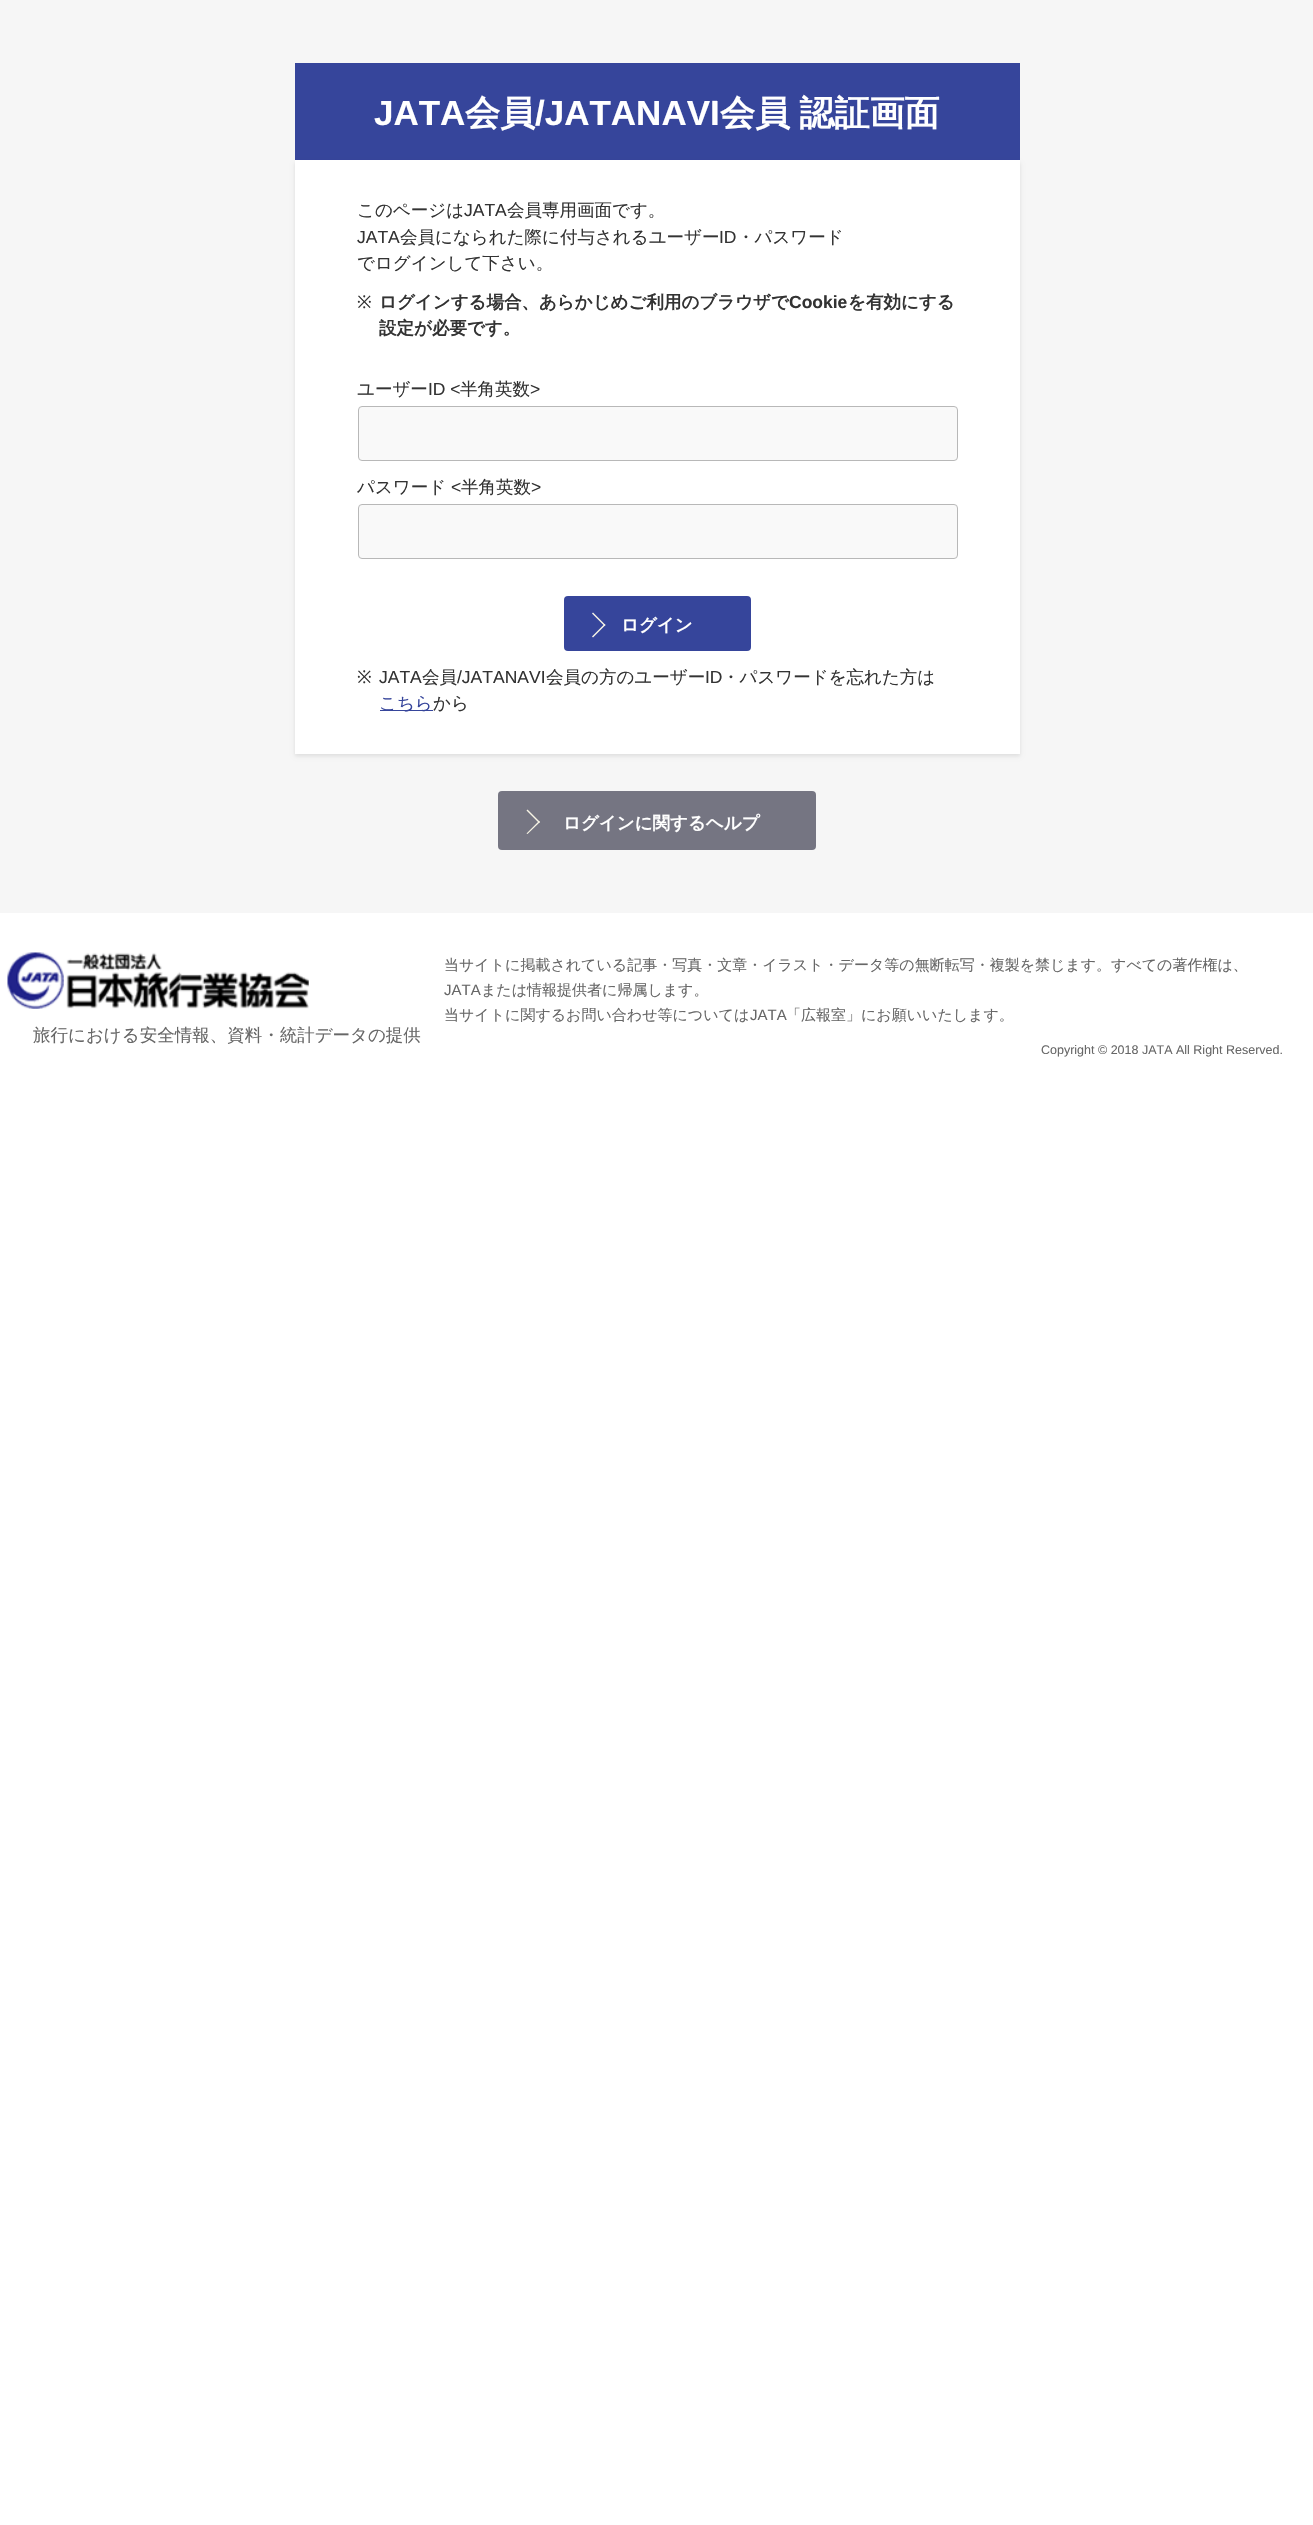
#include "include/core/SkBlurTypes.h"
#include "include/core/SkCanvas.h"
#include "include/core/SkData.h"
#include "include/core/SkFont.h"
#include "include/core/SkFontMgr.h"
#include "include/core/SkImage.h"
#include "include/core/SkMaskFilter.h"
#include "include/core/SkPaint.h"
#include "include/core/SkPathBuilder.h"
#include "include/core/SkTextBlob.h"
#include "include/effects/SkDashPathEffect.h"
#include "include/effects/SkGradientShader.h"
#include "include/utils/SkParsePath.h"

extern sk_sp<SkFontMgr> fontMgr;

void draw(SkCanvas* canvas) {
  SkPaint p;
  p.setAntiAlias(true);
  auto spacedText = [&](const char* s, float x, float y, const SkFont& font, const SkPaint& ink, float letter, float word) {
    std::vector<SkGlyphID> glyphs(font.countText(s, strlen(s), SkTextEncoding::kUTF8));
    std::vector<float> xs(glyphs.size());
    font.textToGlyphs(s, strlen(s), SkTextEncoding::kUTF8, glyphs);
    font.getXPos(glyphs, xs, x);
    float extra = 0;
    for (size_t i = 0; i < glyphs.size(); i++) {
      xs[i] += extra;
      extra += letter + word * (glyphs[i] == font.unicharToGlyph(' '));
    }
    canvas->drawTextBlob(SkTextBlob::MakeFromPosHGlyphs(glyphs, xs, y, font), 0, 0, ink);
  };
  canvas->clear(SK_ColorWHITE);
  p.setColor(SkColorSetRGB(246, 246, 246));
  canvas->drawRect(SkRect::MakeLTRB(0, 0, 1313, 913), p);
  p.setColor(SkColorSetRGB(54, 69, 155));
  canvas->drawRect(SkRect::MakeLTRB(295, 63, 1020, 160), p);
  p.setColor(SkColorSetARGB(26, 0, 0, 0));
  p.setMaskFilter(SkMaskFilter::MakeBlur(kNormal_SkBlurStyle, 2));
  canvas->drawRect(SkRect::MakeLTRB(295, 163, 1020, 756), p);
  p.setMaskFilter(nullptr);
  p.setColor(SK_ColorWHITE);
  canvas->drawRect(SkRect::MakeLTRB(295, 160, 1020, 754), p);
  p.setColor(SkColorSetRGB(249, 249, 249));
  canvas->drawRoundRect(SkRect::MakeLTRB(358.5f, 406.5f, 957.5f, 460.5f), 3.5f, 3.5f, p);
  p.setStyle(SkPaint::kStroke_Style);
  p.setStrokeWidth(1);
  p.setColor(SkColorSetRGB(184, 184, 184));
  canvas->drawRoundRect(SkRect::MakeLTRB(358.5f, 406.5f, 957.5f, 460.5f), 3.5f, 3.5f, p);
  p.setStyle(SkPaint::kFill_Style);
  p.setColor(SkColorSetRGB(249, 249, 249));
  canvas->drawRoundRect(SkRect::MakeLTRB(358.5f, 504.5f, 957.5f, 558.5f), 3.5f, 3.5f, p);
  p.setStyle(SkPaint::kStroke_Style);
  p.setColor(SkColorSetRGB(184, 184, 184));
  canvas->drawRoundRect(SkRect::MakeLTRB(358.5f, 504.5f, 957.5f, 558.5f), 3.5f, 3.5f, p);
  p.setStyle(SkPaint::kFill_Style);
  p.setColor(SkColorSetRGB(54, 69, 155));
  canvas->drawRoundRect(SkRect::MakeLTRB(564, 596, 751, 651), 4, 4, p);
  p.setColor(SkColorSetRGB(248, 245, 230));
  canvas->drawPath(SkPathBuilder().moveTo(593, 612.5f).lineTo(605.5f, 625).lineTo(604.5f, 626).lineTo(592, 613.5f).close().detach(), p);
  canvas->drawPath(SkPathBuilder().moveTo(604.5f, 624).lineTo(605.5f, 625).lineTo(593, 637.5f).lineTo(592, 636.5f).close().detach(), p);
  p.setColor(SkColorSetRGB(54, 69, 155));
  canvas->drawRect(SkRect::MakeLTRB(380, 710, 433, 711), p);
  p.setColor(SkColorSetRGB(117, 117, 130));
  canvas->drawRoundRect(SkRect::MakeLTRB(498, 791, 816, 850), 4, 4, p);
  p.setColor(SkColorSetRGB(248, 245, 230));
  canvas->drawPath(SkPathBuilder().moveTo(527.5f, 809.5f).lineTo(540, 822).lineTo(539, 823).lineTo(526.5f, 810.5f).close().detach(), p);
  canvas->drawPath(SkPathBuilder().moveTo(539, 821).lineTo(540, 822).lineTo(527.5f, 834).lineTo(526.5f, 833.5f).close().detach(), p);
  canvas->drawImageRect(SkImages::DeferredFromEncodedData(SkData::MakeFromFileName("images/1.png")), SkRect::MakeLTRB(7, 952, 309, 1009), SkSamplingOptions());
  SkFont font1(fontMgr->matchFamilyStyle("Liberation Sans", SkFontStyle::Bold()), 35);
  font1.setSubpixel(true);
  p.setColor(SK_ColorWHITE);
  canvas->drawString("JATA", 374, 125, font1, p);
  SkFont font2(fontMgr->matchFamilyStyle("WenQuanYi Zen Hei", SkFontStyle::Bold()), 35);
  font2.setSubpixel(true);
  canvas->drawString("会員", 465, 125, font2, p);
  canvas->drawString("/JATANAVI", 535, 125, font1, p);
  spacedText("会員 認証画面", 720, 125, font2, p, 0, -1);
  SkFont font3(fontMgr->matchFamilyStyle("WenQuanYi Zen Hei", SkFontStyle(500, SkFontStyle::kNormal_Width, SkFontStyle::kUpright_Slant)), 17.5f);
  font3.setSubpixel(true);
  p.setColor(SkColorSetRGB(51, 51, 51));
  canvas->drawString("このページは", 357, 216, font3, p);
  SkFont font4(fontMgr->matchFamilyStyle("Liberation Sans", SkFontStyle::Normal()), 17.5f);
  font4.setSubpixel(true);
  canvas->drawString("JATA", 464, 216, font4, p);
  canvas->drawString("会員専用画面です。", 507, 216, font3, p);
  canvas->drawString("JATA", 357, 243, font4, p);
  canvas->drawString("会員になられた際に付与されるユーザー", 400, 243, font3, p);
  canvas->drawString("ID", 719, 243, font4, p);
  canvas->drawString("・パスワード", 737, 243, font3, p);
  canvas->drawString("でログインして下さい。", 357, 269, font3, p);
  SkFont font5(fontMgr->matchFamilyStyle("Noto Sans", SkFontStyle::Normal()), 17.5f);
  font5.setSubpixel(true);
  canvas->drawString("※", 357, 308, font5, p);
  SkFont font6(fontMgr->matchFamilyStyle("WenQuanYi Zen Hei", SkFontStyle::Bold()), 17.5f);
  font6.setSubpixel(true);
  canvas->drawString("ログインする場合、あらかじめご利用のブラウザで", 379, 308, font6, p);
  SkFont font7(fontMgr->matchFamilyStyle("Liberation Sans", SkFontStyle::Bold()), 17.5f);
  font7.setSubpixel(true);
  canvas->drawString("Cookie", 789, 308, font7, p);
  canvas->drawString("を有効にする", 848, 308, font6, p);
  canvas->drawString("設定が必要です。", 379, 334, font6, p);
  canvas->drawString("ユーザー", 357, 395, font3, p);
  canvas->drawString("ID <", 428, 395, font4, p);
  canvas->drawString("半角英数", 460, 395, font3, p);
  canvas->drawString(">", 530, 395, font4, p);
  canvas->drawString("パスワード", 357, 493, font3, p);
  canvas->drawString("<", 451, 493, font4, p);
  canvas->drawString("半角英数", 461, 493, font3, p);
  canvas->drawString(">", 531, 493, font4, p);
  p.setColor(SK_ColorWHITE);
  canvas->drawString("ログイン", 621, 631, font6, p);
  p.setColor(SkColorSetRGB(51, 51, 51));
  canvas->drawString("※", 357, 683, font5, p);
  canvas->drawString("JATA", 379, 683, font4, p);
  canvas->drawString("会員", 422, 683, font3, p);
  canvas->drawString("/JATANAVI", 457, 683, font4, p);
  canvas->drawString("会員の方のユーザー", 546, 683, font3, p);
  canvas->drawString("ID", 705, 683, font4, p);
  canvas->drawString("・パスワードを忘れた方は", 722, 683, font3, p);
  p.setColor(SkColorSetRGB(54, 69, 155));
  canvas->drawString("こちら", 379, 709, font3, p);
  p.setColor(SkColorSetRGB(51, 51, 51));
  canvas->drawString("から", 433, 709, font3, p);
  p.setColor(SK_ColorWHITE);
  canvas->drawString("ログインに関するヘルプ", 563, 829, font6, p);
  p.setColor(SkColorSetRGB(103, 103, 103));
  canvas->drawString("旅行における安全情報、資料・統計データの提供", 33, 1041, font3, p);
  SkFont font8(fontMgr->matchFamilyStyle("WenQuanYi Zen Hei", SkFontStyle(500, SkFontStyle::kNormal_Width, SkFontStyle::kUpright_Slant)), 15);
  font8.setSubpixel(true);
  canvas->drawString("当サイトに掲載されている記事・写真・文章・イラスト・データ等の無断転写・複製を禁じます。すべての著作権は、", 444, 970, font8, p);
  SkFont font9(fontMgr->matchFamilyStyle("Liberation Sans", SkFontStyle::Normal()), 15);
  font9.setSubpixel(true);
  canvas->drawString("JATA", 444, 995, font9, p);
  canvas->drawString("または情報提供者に帰属します。", 481, 995, font8, p);
  canvas->drawString("当サイトに関するお問い合わせ等については", 444, 1020, font8, p);
  canvas->drawString("JATA", 750, 1020, font9, p);
  canvas->drawString("「広報室」にお願いいたします。", 786, 1020, font8, p);
  SkFont font10(fontMgr->matchFamilyStyle("Liberation Sans", SkFontStyle::Normal()), 12.5f);
  font10.setSubpixel(true);
  canvas->drawString("Copyright © 2018 JATA All Right Reserved.", 1041, 1054, font10, p);
}
